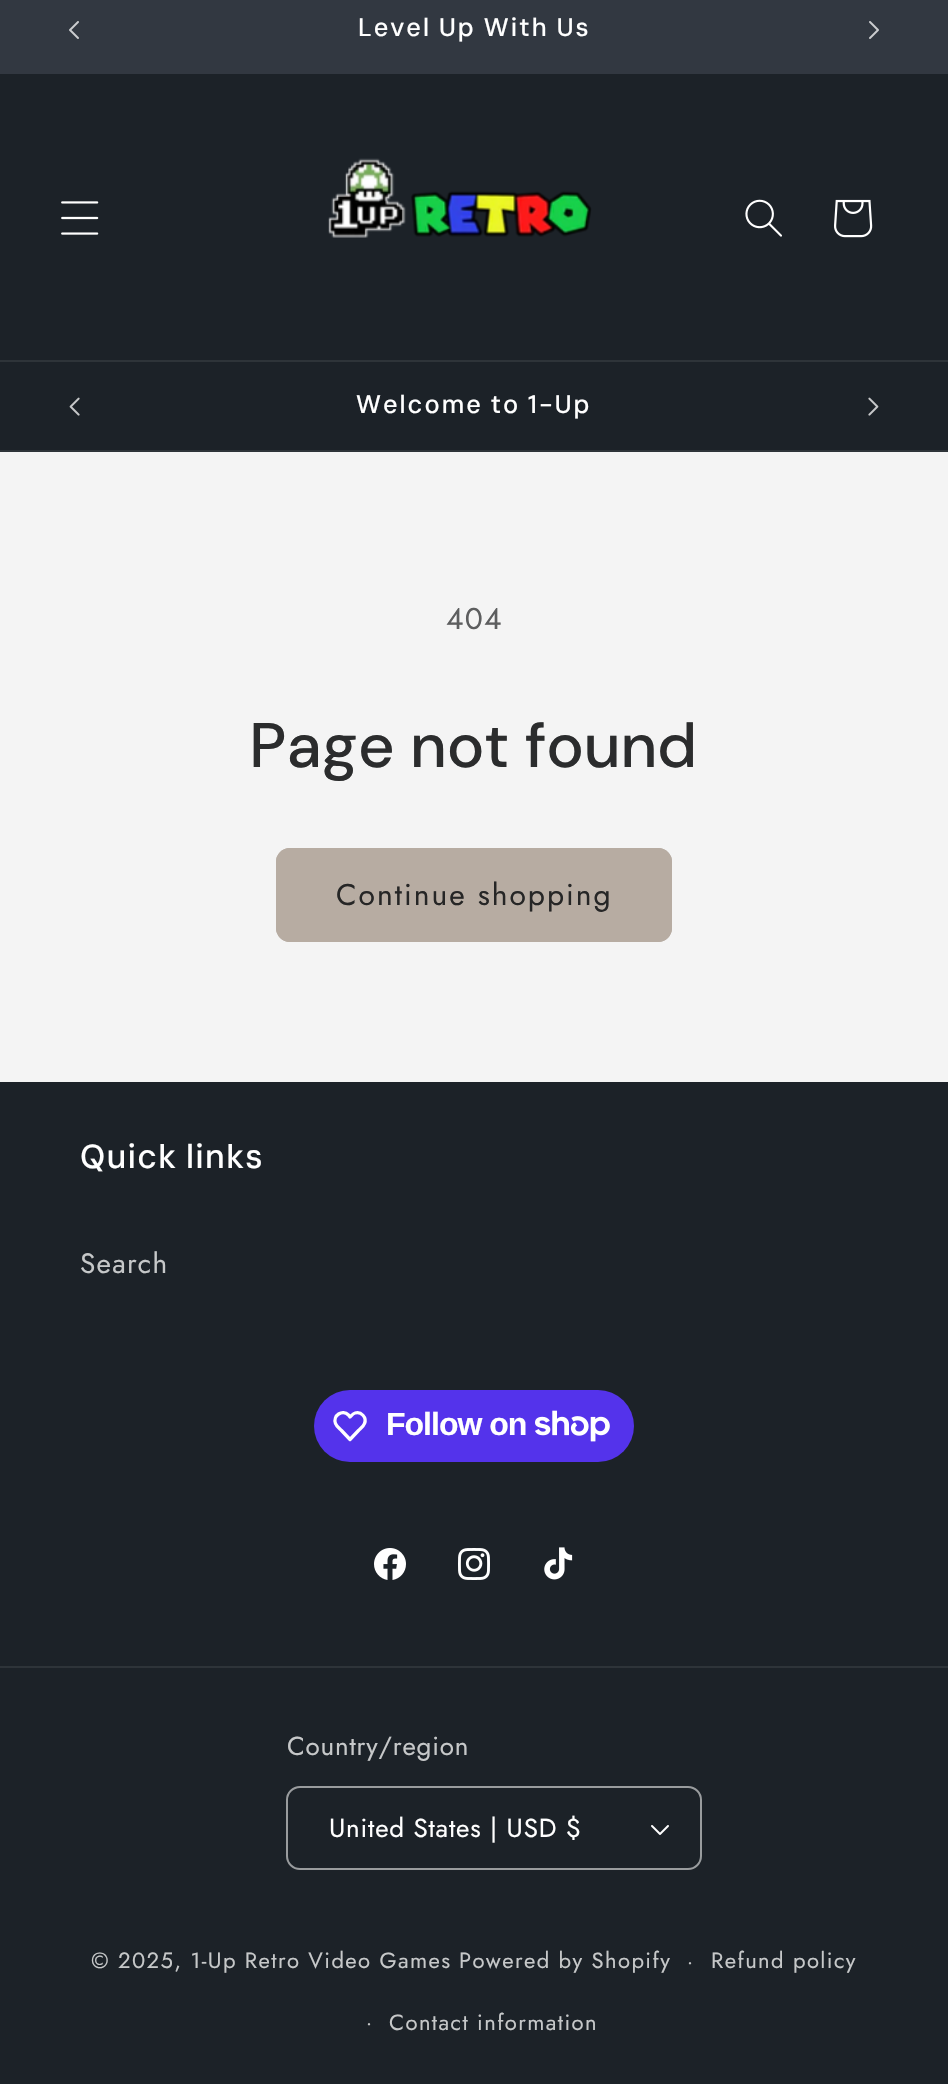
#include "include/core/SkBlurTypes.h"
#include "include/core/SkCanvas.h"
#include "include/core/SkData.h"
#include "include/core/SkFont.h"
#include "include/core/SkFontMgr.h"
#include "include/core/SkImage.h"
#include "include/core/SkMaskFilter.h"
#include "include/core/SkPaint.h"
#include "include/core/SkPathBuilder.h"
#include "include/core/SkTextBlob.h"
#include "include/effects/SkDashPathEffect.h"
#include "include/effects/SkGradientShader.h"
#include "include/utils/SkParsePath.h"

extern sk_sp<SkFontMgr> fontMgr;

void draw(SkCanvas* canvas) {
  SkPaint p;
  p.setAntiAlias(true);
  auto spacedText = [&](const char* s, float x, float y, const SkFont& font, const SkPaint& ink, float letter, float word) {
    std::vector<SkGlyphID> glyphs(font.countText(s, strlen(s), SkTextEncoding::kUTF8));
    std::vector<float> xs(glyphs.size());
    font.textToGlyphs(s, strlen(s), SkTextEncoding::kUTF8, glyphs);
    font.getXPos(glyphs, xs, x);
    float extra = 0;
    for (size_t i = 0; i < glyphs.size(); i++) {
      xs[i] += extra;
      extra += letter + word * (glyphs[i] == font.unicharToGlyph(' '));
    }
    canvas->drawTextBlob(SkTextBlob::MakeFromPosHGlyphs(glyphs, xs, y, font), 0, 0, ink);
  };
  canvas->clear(SkColorSetRGB(244, 244, 244));
  p.setColor(SkColorSetRGB(50, 56, 65));
  canvas->drawRect(SkRect::MakeLTRB(0, 0, 948, 74), p);
  canvas->drawImageRect(SkImages::DeferredFromEncodedData(SkData::MakeFromFileName("images/1.png")), SkRect::MakeLTRB(69, 21, 79, 39), SkSamplingOptions());
  canvas->drawImageRect(SkImages::DeferredFromEncodedData(SkData::MakeFromFileName("images/2.png")), SkRect::MakeLTRB(869, 21, 879, 39), SkSamplingOptions());
  p.setColor(SkColorSetRGB(28, 34, 40));
  canvas->drawRect(SkRect::MakeLTRB(0, 74, 948, 360), p);
  p.setColor(SkColorSetRGB(46, 52, 57));
  canvas->drawRect(SkRect::MakeLTRB(0, 360, 948, 362), p);
  canvas->drawImageRect(SkImages::DeferredFromEncodedData(SkData::MakeFromFileName("images/3.png")), SkRect::MakeLTRB(61, 201, 99, 235), SkSamplingOptions());
  canvas->drawImageRect(SkImages::DeferredFromEncodedData(SkData::MakeFromFileName("images/4.png")), SkRect::MakeLTRB(328, 158, 592, 238), SkSamplingOptions());
  canvas->drawImageRect(SkImages::DeferredFromEncodedData(SkData::MakeFromFileName("images/5.png")), SkRect::MakeLTRB(745, 199, 782, 237), SkSamplingOptions());
  canvas->drawImageRect(SkImages::DeferredFromEncodedData(SkData::MakeFromFileName("images/6.png")), SkRect::MakeLTRB(834, 199, 873, 238), SkSamplingOptions());
  p.setColor(SkColorSetRGB(28, 34, 40));
  canvas->drawRect(SkRect::MakeLTRB(0, 362, 948, 450), p);
  p.setColor(SkColorSetRGB(46, 52, 57));
  canvas->drawRect(SkRect::MakeLTRB(0, 450, 948, 452), p);
  canvas->drawImageRect(SkImages::DeferredFromEncodedData(SkData::MakeFromFileName("images/7.png")), SkRect::MakeLTRB(69, 397, 80, 416), SkSamplingOptions());
  canvas->drawImageRect(SkImages::DeferredFromEncodedData(SkData::MakeFromFileName("images/8.png")), SkRect::MakeLTRB(868, 397, 879, 416), SkSamplingOptions());
  p.setColor(SkColorSetRGB(183, 172, 162));
  canvas->drawRoundRect(SkRect::MakeLTRB(276, 848, 672, 942), 14, 14, p);
  p.setStyle(SkPaint::kStroke_Style);
  p.setStrokeWidth(2);
  canvas->drawRoundRect(SkRect::MakeLTRB(277, 849, 671, 941), 13, 13, p);
  p.setStyle(SkPaint::kFill_Style);
  p.setColor(SkColorSetRGB(28, 34, 40));
  canvas->drawRect(SkRect::MakeLTRB(0, 1082, 948, 2084), p);
  p.setColor(SkColorSetRGB(84, 51, 235));
  canvas->drawRoundRect(SkRect::MakeLTRB(314, 1390, 634, 1462), 36, 36, p);
  p.setStyle(SkPaint::kStroke_Style);
  p.setStrokeWidth(3.3f);
  p.setStrokeJoin(SkPaint::kRound_Join);
  p.setColor(SK_ColorWHITE);
  canvas->drawPath(SkPathBuilder().moveTo(348.5f, 1415).lineTo(350, 1417).cubicTo(351.5f, 1415.5f, 353, 1413.5f, 355, 1413).cubicTo(361, 1411, 367, 1417.5f, 364.5f, 1423.5f).cubicTo(363.5f, 1426.5f, 360.5f, 1428.5f, 358.5f, 1430.5f).lineTo(350, 1439.5f).lineTo(341.5f, 1430.5f).cubicTo(339.5f, 1428.5f, 336.5f, 1426.5f, 335.5f, 1423.5f).cubicTo(332.5f, 1415.5f, 342.5f, 1409, 348.5f, 1415).close().detach(), p);
  canvas->drawImageRect(SkImages::DeferredFromEncodedData(SkData::MakeFromFileName("images/9.png")), SkRect::MakeLTRB(535, 1410, 610, 1442), SkSamplingOptions());
  canvas->drawImageRect(SkImages::DeferredFromEncodedData(SkData::MakeFromFileName("images/10.png")), SkRect::MakeLTRB(374, 1548, 406, 1580), SkSamplingOptions());
  canvas->drawImageRect(SkImages::DeferredFromEncodedData(SkData::MakeFromFileName("images/11.png")), SkRect::MakeLTRB(458, 1548, 490, 1580), SkSamplingOptions());
  canvas->drawImageRect(SkImages::DeferredFromEncodedData(SkData::MakeFromFileName("images/12.png")), SkRect::MakeLTRB(544, 1547, 573, 1580), SkSamplingOptions());
  p.setStyle(SkPaint::kFill_Style);
  p.setColor(SkColorSetRGB(46, 52, 57));
  canvas->drawRect(SkRect::MakeLTRB(0, 1666, 948, 1668), p);
  canvas->drawImageRect(SkImages::DeferredFromEncodedData(SkData::MakeFromFileName("images/13.png")), SkRect::MakeLTRB(651, 1825, 669, 1835), SkSamplingOptions());
  p.setStyle(SkPaint::kStroke_Style);
  p.setStrokeWidth(2);
  p.setStrokeJoin(SkPaint::kMiter_Join);
  p.setColor(SkColorSetRGB(153, 156, 158));
  canvas->drawRoundRect(SkRect::MakeLTRB(287, 1787, 701, 1869), 13, 13, p);
  SkFont font1(fontMgr->matchFamilyStyle("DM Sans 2", SkFontStyle(500, SkFontStyle::kNormal_Width, SkFontStyle::kUpright_Slant)), 25.25f);
  font1.setSubpixel(true);
  p.setStyle(SkPaint::kFill_Style);
  p.setColor(SK_ColorWHITE);
  spacedText("Level Up With Us", 358, 36, font1, p, 2, -0.5f);
  spacedText("Welcome to 1-Up", 356, 413, font1, p, 2, -1);
  SkFont font2(fontMgr->matchFamilyStyle("Jost", SkFontStyle::Normal()), 30);
  font2.setSubpixel(true);
  p.setColor(SkColorSetRGB(93, 94, 95));
  spacedText("404", 446, 629, font2, p, 1.25f, 0);
  SkFont font3(fontMgr->matchFamilyStyle("DM Sans", SkFontStyle(500, SkFontStyle::kNormal_Width, SkFontStyle::kUpright_Slant)), 63);
  font3.setSubpixel(true);
  p.setColor(SkColorSetRGB(43, 44, 45));
  spacedText("Page not found", 250, 767, font3, p, 1.25f, 0);
  p.setColor(SkColorSetRGB(38, 38, 38));
  spacedText("Continue shopping", 336, 905, font2, p, 2, 0);
  SkFont font4(fontMgr->matchFamilyStyle("DM Sans 2", SkFontStyle(500, SkFontStyle::kNormal_Width, SkFontStyle::kUpright_Slant)), 33.5f);
  font4.setSubpixel(true);
  p.setColor(SK_ColorWHITE);
  spacedText("Quick links", 80, 1168, font4, p, 1.25f, -1);
  SkFont font5(fontMgr->matchFamilyStyle("Jost", SkFontStyle::Normal()), 28);
  font5.setSubpixel(true);
  p.setColor(SkColorSetRGB(198, 200, 201));
  spacedText("Search", 80, 1273, font5, p, 1.25f, 0);
  SkFont font6(fontMgr->matchFamilyStyle("Liberation Sans", SkFontStyle::Bold()), 32);
  font6.setSubpixel(true);
  p.setColor(SK_ColorWHITE);
  spacedText("Follow on", 386, 1435, font6, p, -1, 0);
  SkFont font7(fontMgr->matchFamilyStyle("Jost", SkFontStyle::Normal()), 26);
  font7.setSubpixel(true);
  p.setColor(SkColorSetRGB(198, 200, 201));
  spacedText("Country/region", 287, 1755, font7, p, 0.8f, 0);
  p.setColor(SK_ColorWHITE);
  spacedText("United States | USD $", 329, 1837, font7, p, 0.8f, 0);
  SkFont font8(fontMgr->matchFamilyStyle("Jost", SkFontStyle::Normal()), 22);
  font8.setSubpixel(true);
  p.setColor(SkColorSetRGB(198, 200, 201));
  spacedText("© 2025, 1-Up Retro Video Games", 91, 1968, font8, p, 1.4f, 0);
  SkFont font9(fontMgr->matchFamilyStyle("Jost", SkFontStyle::Normal()), 20);
  font9.setSubpixel(true);
  spacedText("·", 687, 1968, font9, p, 1.4f, 0);
  spacedText("Refund policy", 711, 1968, font8, p, 1.4f, 0);
  spacedText("·", 366, 2029, font9, p, 1.4f, 0);
  spacedText("Contact information", 389, 2030, font8, p, 1.4f, 0);
  spacedText("Powered by Shopify", 459, 1968, font8, p, 1.4f, 0);
}
